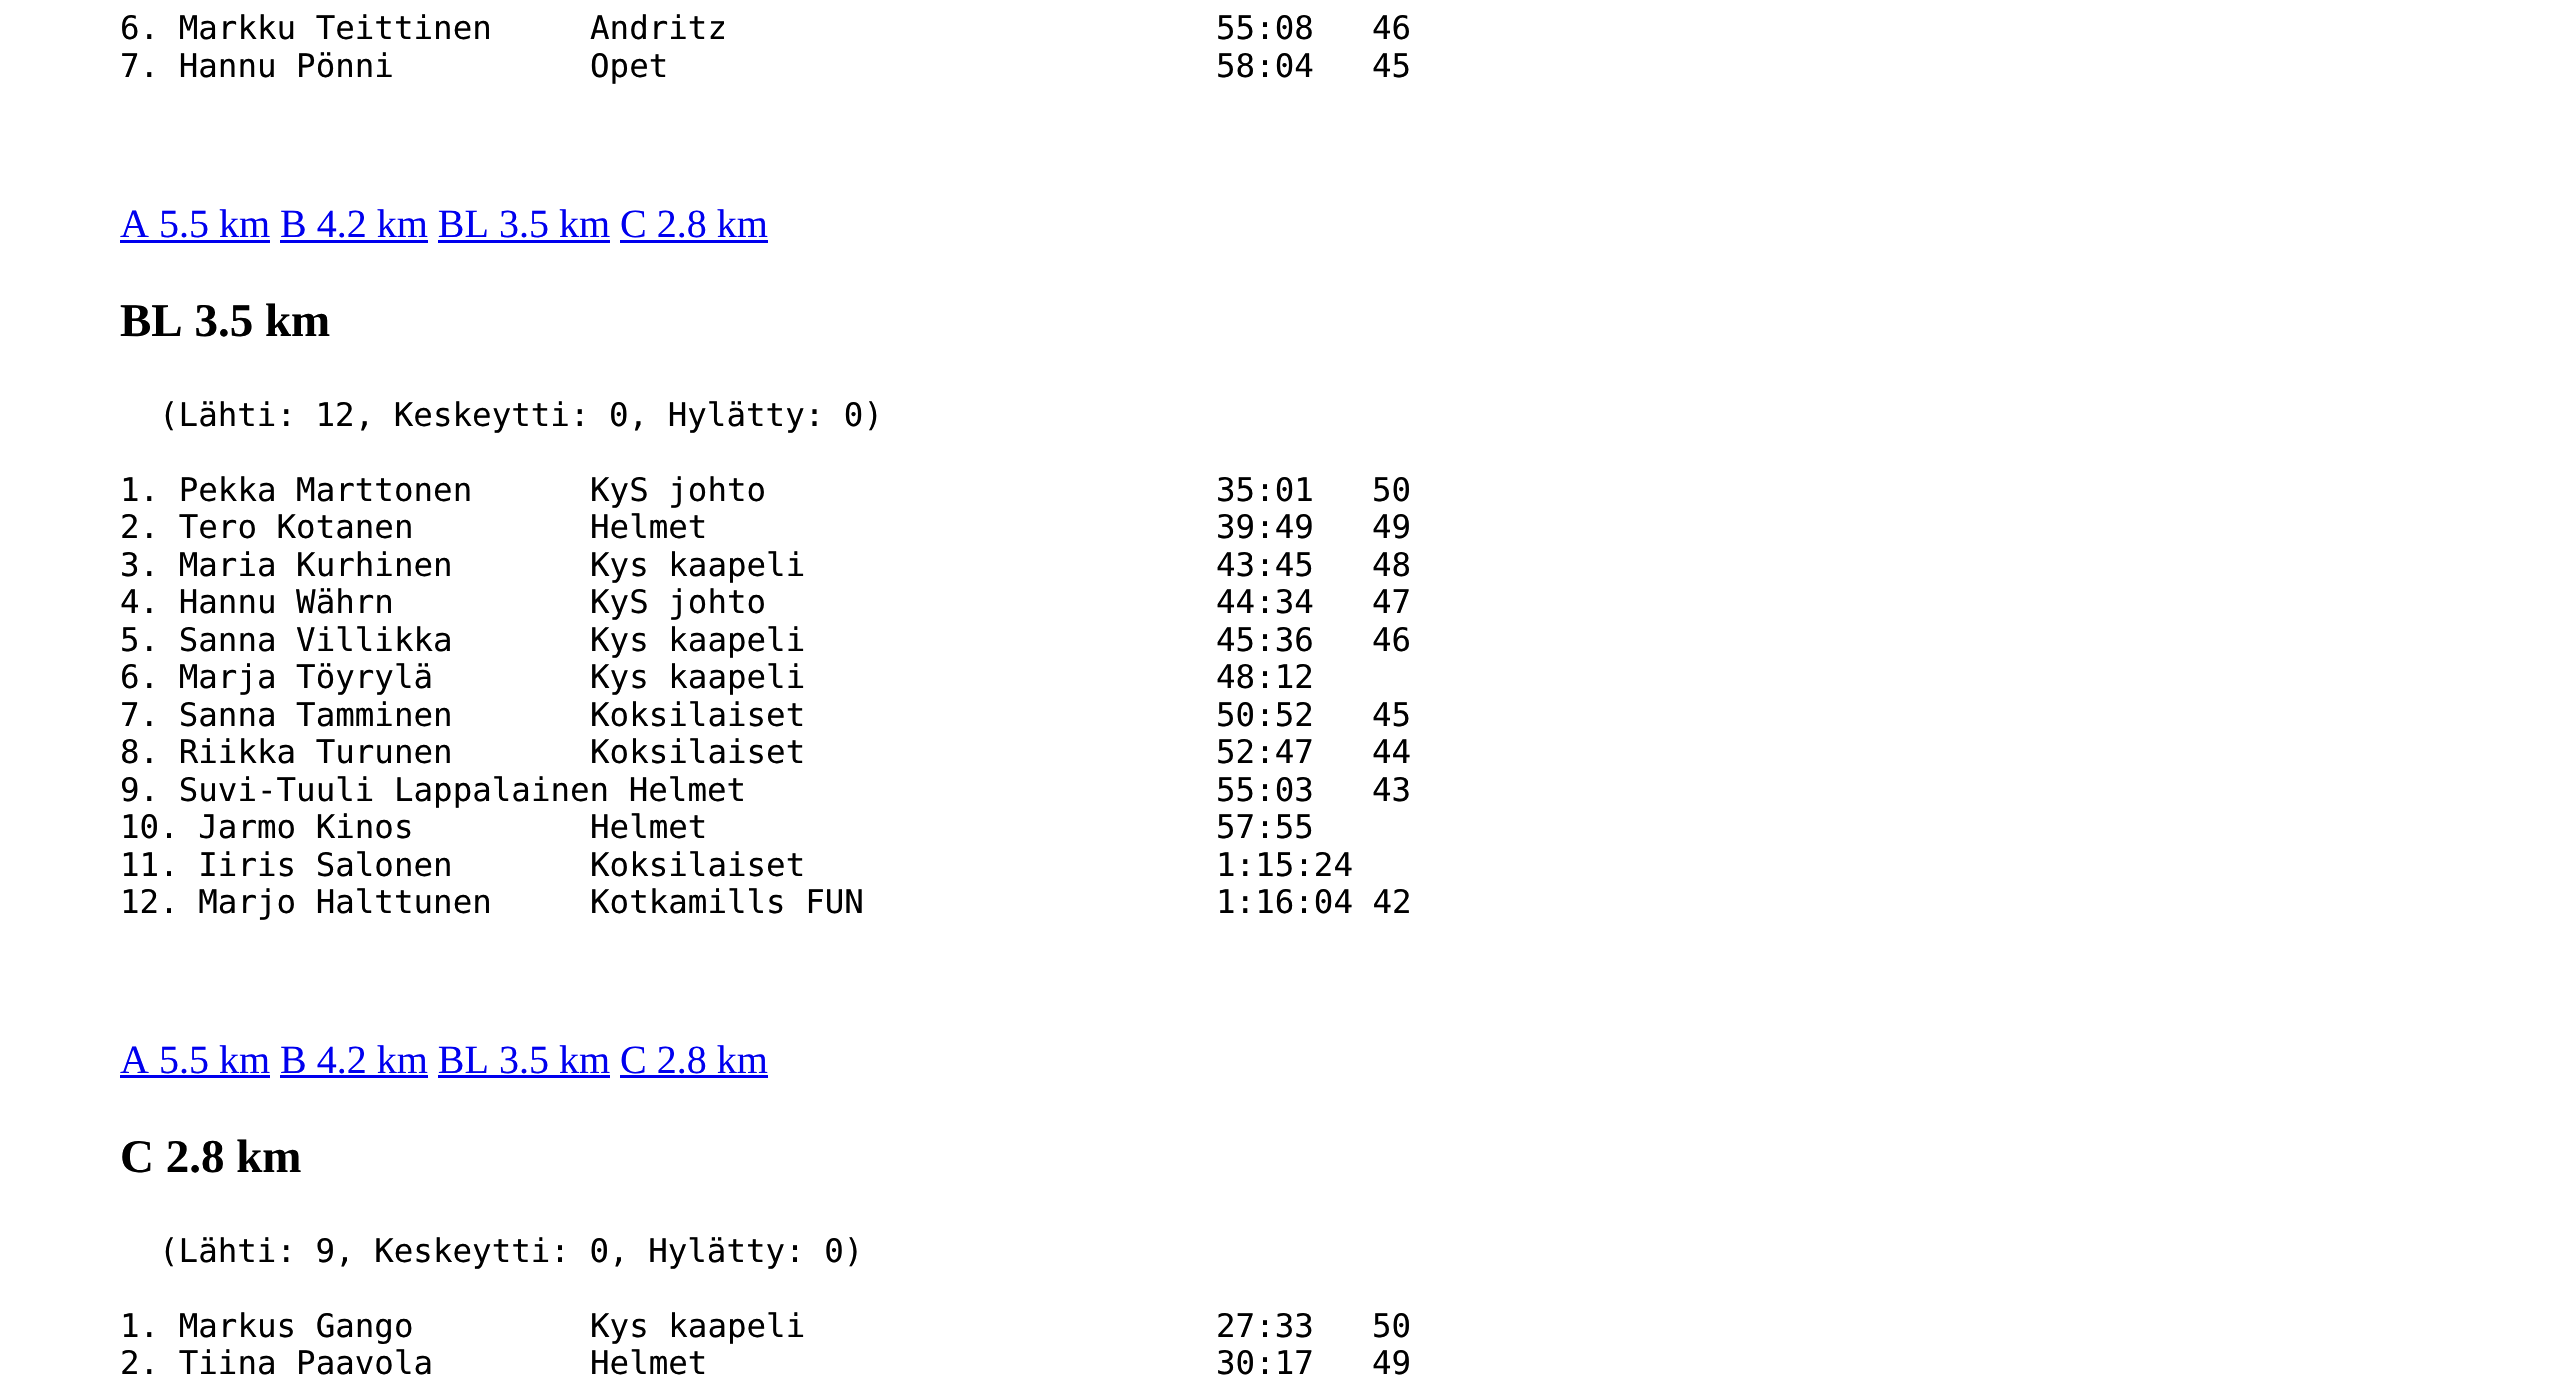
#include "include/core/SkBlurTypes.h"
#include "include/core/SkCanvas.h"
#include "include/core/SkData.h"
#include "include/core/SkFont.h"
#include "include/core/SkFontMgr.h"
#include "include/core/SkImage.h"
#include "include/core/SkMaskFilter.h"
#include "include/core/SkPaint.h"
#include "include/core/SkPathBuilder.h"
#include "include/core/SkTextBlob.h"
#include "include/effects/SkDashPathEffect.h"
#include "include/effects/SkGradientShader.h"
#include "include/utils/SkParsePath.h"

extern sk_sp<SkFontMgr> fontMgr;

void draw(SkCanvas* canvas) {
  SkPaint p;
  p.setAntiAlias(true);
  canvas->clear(SK_ColorWHITE);
  p.setColor(SkColorSetRGB(0, 0, 238));
  canvas->drawRect(SkRect::MakeLTRB(120, 240, 270, 243), p);
  canvas->drawRect(SkRect::MakeLTRB(280, 240, 428, 243), p);
  canvas->drawRect(SkRect::MakeLTRB(438, 240, 610, 243), p);
  canvas->drawRect(SkRect::MakeLTRB(620, 240, 768, 243), p);
  canvas->drawRect(SkRect::MakeLTRB(120, 1075, 270, 1078), p);
  canvas->drawRect(SkRect::MakeLTRB(280, 1075, 428, 1078), p);
  canvas->drawRect(SkRect::MakeLTRB(438, 1075, 610, 1078), p);
  canvas->drawRect(SkRect::MakeLTRB(620, 1075, 768, 1078), p);
  SkFont font1(fontMgr->matchFamilyStyle("DejaVu Sans Mono", SkFontStyle::Normal()), 32.5f);
  font1.setSubpixel(true);
  p.setColor(SK_ColorBLACK);
  canvas->drawString("6. Markku Teittinen", 120, 39, font1, p);
  canvas->drawString("Andritz", 590, 39, font1, p);
  canvas->drawString("55:08", 1216, 39, font1, p);
  canvas->drawString("46", 1372, 39, font1, p);
  canvas->drawString("7. Hannu Pönni", 120, 77, font1, p);
  canvas->drawString("Opet", 590, 77, font1, p);
  canvas->drawString("58:04", 1216, 77, font1, p);
  canvas->drawString("45", 1372, 77, font1, p);
  SkFont font2(fontMgr->matchFamilyStyle("Liberation Serif", SkFontStyle::Normal()), 40);
  font2.setSubpixel(true);
  p.setColor(SkColorSetRGB(0, 0, 238));
  canvas->drawString("A 5.5 km B 4.2 km BL 3.5 km C 2.8 km", 120, 237, font2, p);
  SkFont font3(fontMgr->matchFamilyStyle("Liberation Serif", SkFontStyle::Bold()), 47);
  font3.setSubpixel(true);
  p.setColor(SK_ColorBLACK);
  canvas->drawString("BL 3.5 km", 120, 336, font3, p);
  canvas->drawString("(Lähti: 12, Keskeytti: 0, Hylätty: 0)", 159, 426, font1, p);
  canvas->drawString("1. Pekka Marttonen", 120, 501, font1, p);
  canvas->drawString("KyS johto", 590, 501, font1, p);
  canvas->drawString("35:01", 1216, 501, font1, p);
  canvas->drawString("50", 1372, 501, font1, p);
  canvas->drawString("2. Tero Kotanen", 120, 538, font1, p);
  canvas->drawString("Helmet", 590, 538, font1, p);
  canvas->drawString("39:49", 1216, 538, font1, p);
  canvas->drawString("49", 1372, 538, font1, p);
  canvas->drawString("3. Maria Kurhinen", 120, 576, font1, p);
  canvas->drawString("Kys kaapeli", 590, 576, font1, p);
  canvas->drawString("43:45", 1216, 576, font1, p);
  canvas->drawString("48", 1372, 576, font1, p);
  canvas->drawString("4. Hannu Währn", 120, 613, font1, p);
  canvas->drawString("KyS johto", 590, 613, font1, p);
  canvas->drawString("44:34", 1216, 613, font1, p);
  canvas->drawString("47", 1372, 613, font1, p);
  canvas->drawString("5. Sanna Villikka", 120, 651, font1, p);
  canvas->drawString("Kys kaapeli", 590, 651, font1, p);
  canvas->drawString("45:36", 1216, 651, font1, p);
  canvas->drawString("46", 1372, 651, font1, p);
  canvas->drawString("6. Marja Töyrylä", 120, 688, font1, p);
  canvas->drawString("Kys kaapeli", 590, 688, font1, p);
  canvas->drawString("48:12", 1216, 688, font1, p);
  canvas->drawString("7. Sanna Tamminen", 120, 726, font1, p);
  canvas->drawString("Koksilaiset", 590, 726, font1, p);
  canvas->drawString("50:52", 1216, 726, font1, p);
  canvas->drawString("45", 1372, 726, font1, p);
  canvas->drawString("8. Riikka Turunen", 120, 763, font1, p);
  canvas->drawString("Koksilaiset", 590, 763, font1, p);
  canvas->drawString("52:47", 1216, 763, font1, p);
  canvas->drawString("44", 1372, 763, font1, p);
  canvas->drawString("9. Suvi-Tuuli Lappalainen Helmet", 120, 801, font1, p);
  canvas->drawString("55:03", 1216, 801, font1, p);
  canvas->drawString("43", 1372, 801, font1, p);
  canvas->drawString("10. Jarmo Kinos", 120, 838, font1, p);
  canvas->drawString("Helmet", 590, 838, font1, p);
  canvas->drawString("57:55", 1216, 838, font1, p);
  canvas->drawString("11. Iiris Salonen", 120, 876, font1, p);
  canvas->drawString("Koksilaiset", 590, 876, font1, p);
  canvas->drawString("1:15:24", 1216, 876, font1, p);
  canvas->drawString("12. Marjo Halttunen", 120, 913, font1, p);
  canvas->drawString("Kotkamills FUN", 590, 913, font1, p);
  canvas->drawString("1:16:04 42", 1216, 913, font1, p);
  p.setColor(SkColorSetRGB(0, 0, 238));
  canvas->drawString("A 5.5 km B 4.2 km BL 3.5 km C 2.8 km", 120, 1073, font2, p);
  p.setColor(SK_ColorBLACK);
  canvas->drawString("C 2.8 km", 120, 1172, font3, p);
  canvas->drawString("(Lähti: 9, Keskeytti: 0, Hylätty: 0)", 159, 1262, font1, p);
  canvas->drawString("1. Markus Gango", 120, 1337, font1, p);
  canvas->drawString("Kys kaapeli", 590, 1337, font1, p);
  canvas->drawString("27:33", 1216, 1337, font1, p);
  canvas->drawString("50", 1372, 1337, font1, p);
  canvas->drawString("2. Tiina Paavola", 120, 1374, font1, p);
  canvas->drawString("Helmet", 590, 1374, font1, p);
  canvas->drawString("30:17", 1216, 1374, font1, p);
  canvas->drawString("49", 1372, 1374, font1, p);
}
